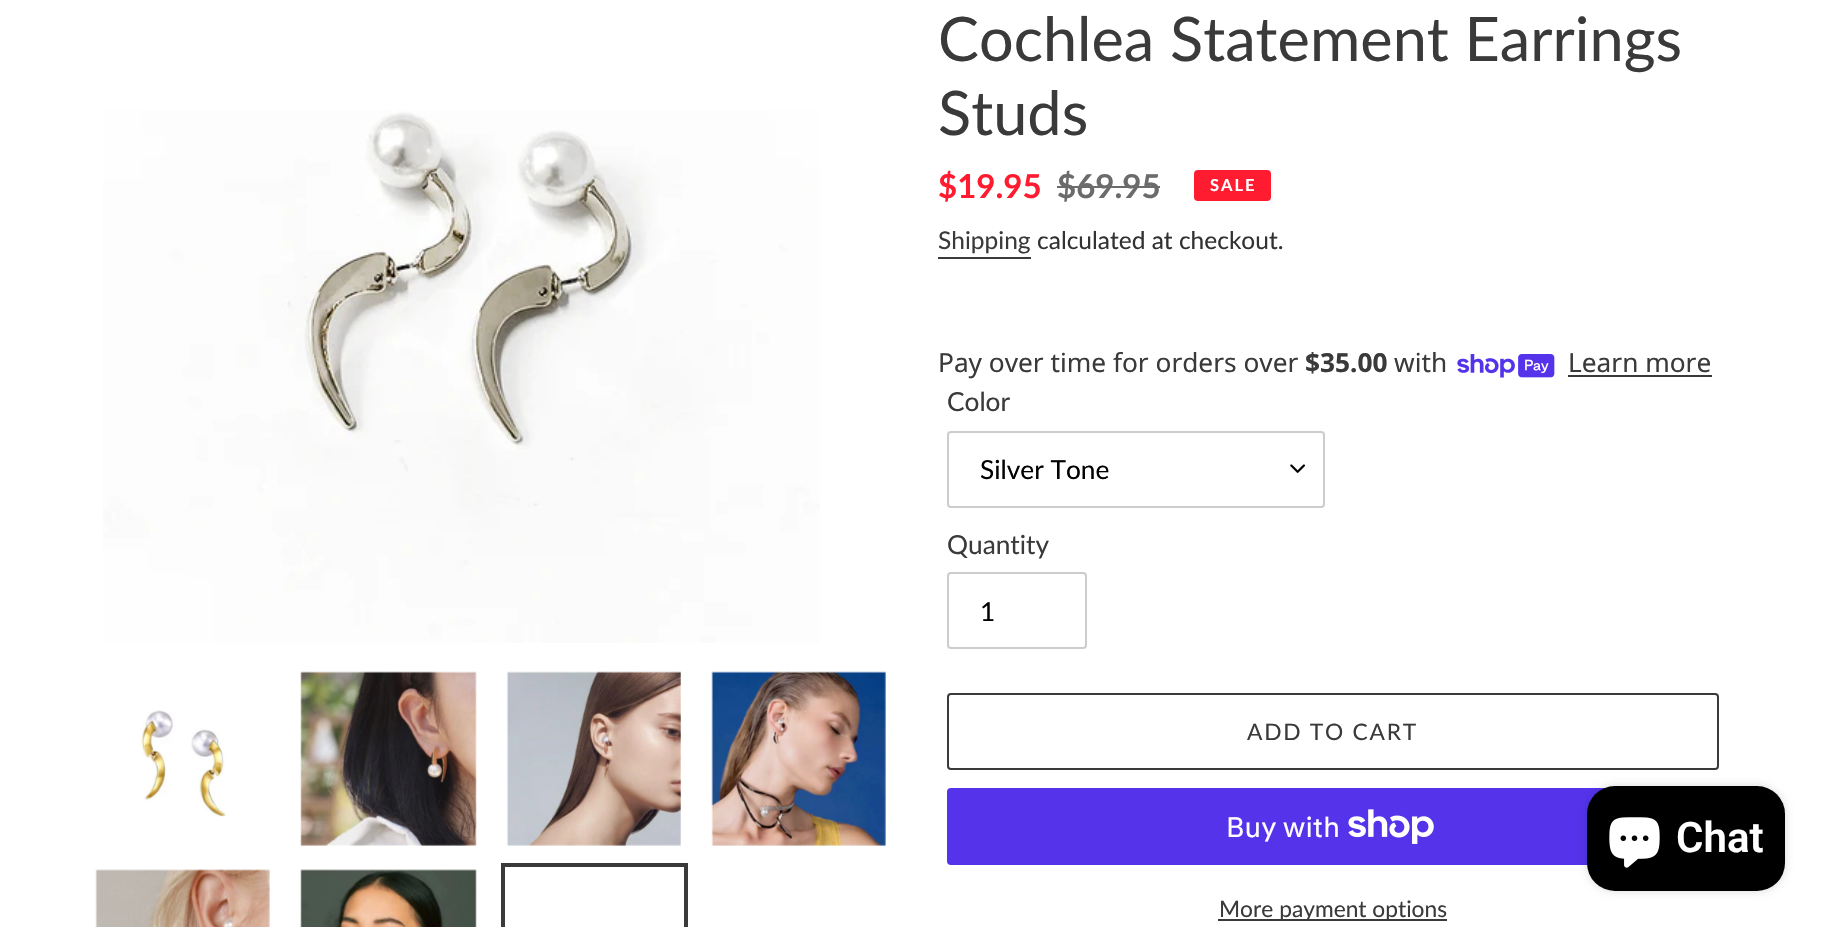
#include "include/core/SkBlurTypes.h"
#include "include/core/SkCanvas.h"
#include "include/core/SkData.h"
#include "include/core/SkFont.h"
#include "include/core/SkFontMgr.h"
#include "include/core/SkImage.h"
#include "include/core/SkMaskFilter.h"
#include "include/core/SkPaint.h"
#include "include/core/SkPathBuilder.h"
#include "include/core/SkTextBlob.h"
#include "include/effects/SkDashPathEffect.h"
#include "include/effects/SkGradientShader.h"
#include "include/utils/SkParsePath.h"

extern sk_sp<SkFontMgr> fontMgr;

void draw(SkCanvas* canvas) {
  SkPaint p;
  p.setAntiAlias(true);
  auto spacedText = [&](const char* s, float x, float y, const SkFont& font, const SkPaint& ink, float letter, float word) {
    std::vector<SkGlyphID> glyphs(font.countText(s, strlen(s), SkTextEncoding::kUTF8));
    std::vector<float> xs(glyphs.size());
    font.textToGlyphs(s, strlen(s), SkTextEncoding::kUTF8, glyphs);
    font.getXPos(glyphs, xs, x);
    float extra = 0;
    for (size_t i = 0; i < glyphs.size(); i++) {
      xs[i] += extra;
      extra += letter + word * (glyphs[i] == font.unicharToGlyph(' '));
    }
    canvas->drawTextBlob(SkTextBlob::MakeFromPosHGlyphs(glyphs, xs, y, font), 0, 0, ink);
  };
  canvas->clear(SK_ColorWHITE);
  canvas->drawImageRect(SkImages::DeferredFromEncodedData(SkData::MakeFromFileName("images/1.png")), SkRect::MakeLTRB(103, 110, 820, 643), SkSamplingOptions());
  canvas->drawImageRect(SkImages::DeferredFromEncodedData(SkData::MakeFromFileName("images/2.png")), SkRect::MakeLTRB(141, 710, 226, 817), SkSamplingOptions());
  canvas->drawImageRect(SkImages::DeferredFromEncodedData(SkData::MakeFromFileName("images/3.png")), SkRect::MakeLTRB(300, 671, 477, 846), SkSamplingOptions());
  canvas->drawImageRect(SkImages::DeferredFromEncodedData(SkData::MakeFromFileName("images/4.png")), SkRect::MakeLTRB(506, 671, 681, 846), SkSamplingOptions());
  canvas->drawImageRect(SkImages::DeferredFromEncodedData(SkData::MakeFromFileName("images/5.png")), SkRect::MakeLTRB(711, 671, 886, 846), SkSamplingOptions());
  canvas->drawImageRect(SkImages::DeferredFromEncodedData(SkData::MakeFromFileName("images/6.png")), SkRect::MakeLTRB(95, 869, 270, 927), SkSamplingOptions());
  canvas->drawImageRect(SkImages::DeferredFromEncodedData(SkData::MakeFromFileName("images/7.png")), SkRect::MakeLTRB(300, 869, 477, 927), SkSamplingOptions());
  p.setStyle(SkPaint::kStroke_Style);
  p.setStrokeWidth(4);
  p.setColor(SkColorSetRGB(58, 58, 58));
  canvas->drawRect(SkRect::MakeLTRB(503, 865, 686, 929), p);
  p.setStyle(SkPaint::kFill_Style);
  p.setColor(SkColorSetRGB(107, 107, 107));
  canvas->drawRect(SkRect::MakeLTRB(1057, 186, 1160, 188), p);
  p.setColor(SkColorSetRGB(255, 28, 48));
  canvas->drawRoundRect(SkRect::MakeLTRB(1195, 171, 1270, 200), 3, 3, p);
  p.setStyle(SkPaint::kStroke_Style);
  p.setStrokeWidth(2);
  canvas->drawRoundRect(SkRect::MakeLTRB(1195, 171, 1270, 200), 3, 3, p);
  p.setStyle(SkPaint::kFill_Style);
  p.setColor(SkColorSetRGB(58, 58, 58));
  canvas->drawRect(SkRect::MakeLTRB(938, 257, 1031, 259), p);
  canvas->drawImageRect(SkImages::DeferredFromEncodedData(SkData::MakeFromFileName("images/8.png")), SkRect::MakeLTRB(1457, 354, 1555, 378), SkSamplingOptions());
  canvas->drawRect(SkRect::MakeLTRB(1568, 375, 1712, 377), p);
  canvas->drawImageRect(SkImages::DeferredFromEncodedData(SkData::MakeFromFileName("images/9.png")), SkRect::MakeLTRB(1290, 464, 1305, 473), SkSamplingOptions());
  p.setStyle(SkPaint::kStroke_Style);
  p.setColor(SkColorSetRGB(204, 204, 204));
  canvas->drawRoundRect(SkRect::MakeLTRB(948, 432, 1324, 507), 3, 3, p);
  canvas->drawRoundRect(SkRect::MakeLTRB(948, 573, 1086, 648), 3, 3, p);
  p.setColor(SkColorSetRGB(58, 58, 58));
  canvas->drawRoundRect(SkRect::MakeLTRB(948, 694, 1718, 769), 3, 3, p);
  p.setStyle(SkPaint::kFill_Style);
  p.setColor(SkColorSetRGB(84, 51, 235));
  canvas->drawRoundRect(SkRect::MakeLTRB(947, 788, 1719, 865), 4, 4, p);
  canvas->drawImageRect(SkImages::DeferredFromEncodedData(SkData::MakeFromFileName("images/10.png")), SkRect::MakeLTRB(1348, 809, 1434, 844), SkSamplingOptions());
  p.setColor(SkColorSetRGB(58, 58, 58));
  canvas->drawRect(SkRect::MakeLTRB(1218, 919, 1447, 921), p);
  p.setColor(SkColorSetARGB(38, 0, 0, 0));
  p.setMaskFilter(SkMaskFilter::MakeBlur(kNormal_SkBlurStyle, 4.5f));
  canvas->drawRoundRect(SkRect::MakeLTRB(1587, 786, 1785, 891), 28, 28, p);
  p.setMaskFilter(nullptr);
  p.setColor(SK_ColorBLACK);
  canvas->drawRoundRect(SkRect::MakeLTRB(1587, 786, 1785, 891), 28, 28, p);
  canvas->drawImageRect(SkImages::DeferredFromEncodedData(SkData::MakeFromFileName("images/11.png")), SkRect::MakeLTRB(1609, 817, 1660, 868), SkSamplingOptions());
  SkFont font1(fontMgr->matchFamilyStyle("Lato", SkFontStyle::Normal()), 61.25f);
  font1.setSubpixel(true);
  p.setColor(SkColorSetRGB(58, 58, 58));
  canvas->drawString("Cochlea Statement Earrings", 938, 61, font1, p);
  canvas->drawString("Studs", 938, 135, font1, p);
  SkFont font2(fontMgr->matchFamilyStyle("Lato", SkFontStyle::Bold()), 33);
  font2.setSubpixel(true);
  p.setColor(SkColorSetRGB(255, 28, 48));
  canvas->drawString("$19.95", 938, 198, font2, p);
  p.setColor(SkColorSetRGB(107, 107, 107));
  canvas->drawString("$69.95", 1057, 198, font2, p);
  SkFont font3(fontMgr->matchFamilyStyle("Lato", SkFontStyle::Bold()), 16.5f);
  font3.setSubpixel(true);
  p.setColor(SK_ColorWHITE);
  spacedText("SALE", 1210, 191, font3, p, 2, 0);
  SkFont font4(fontMgr->matchFamilyStyle("Lato", SkFontStyle::Normal()), 24.5f);
  font4.setSubpixel(true);
  p.setColor(SkColorSetRGB(58, 58, 58));
  canvas->drawString("Shipping", 938, 249, font4, p);
  p.setColor(SkColorSetRGB(51, 50, 50));
  canvas->drawString("calculated at checkout.", 1037, 249, font4, p);
  SkFont font5(fontMgr->matchFamilyStyle("Noto Sans", SkFontStyle::Normal()), 26.25f);
  font5.setSubpixel(true);
  p.setColor(SkColorSetRGB(58, 58, 58));
  canvas->drawString("Pay over time for orders over", 938, 372, font5, p);
  SkFont font6(fontMgr->matchFamilyStyle("Noto Sans", SkFontStyle::Bold()), 26.25f);
  font6.setSubpixel(true);
  canvas->drawString("$35.00", 1305, 372, font6, p);
  canvas->drawString("with", 1394, 372, font5, p);
  canvas->drawString("Learn more", 1568, 372, font5, p);
  SkFont font7(fontMgr->matchFamilyStyle("Lato", SkFontStyle::Normal()), 26.25f);
  font7.setSubpixel(true);
  canvas->drawString("Color", 947, 411, font7, p);
  p.setColor(SK_ColorBLACK);
  canvas->drawString("Silver Tone", 980, 479, font7, p);
  p.setColor(SkColorSetRGB(58, 58, 58));
  canvas->drawString("Quantity", 947, 554, font7, p);
  p.setColor(SK_ColorBLACK);
  canvas->drawString("1", 980, 621, font7, p);
  SkFont font8(fontMgr->matchFamilyStyle("Lato", SkFontStyle::Normal()), 22.75f);
  font8.setSubpixel(true);
  p.setColor(SkColorSetRGB(58, 58, 58));
  spacedText("ADD TO CART", 1247, 740, font8, p, 1.75f, 0);
  SkFont font9(fontMgr->matchFamilyStyle("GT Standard", SkFontStyle::Normal()), 28);
  font9.setSubpixel(true);
  p.setColor(SK_ColorWHITE);
  canvas->drawString("Buy with", 1226, 837, font9, p);
  p.setColor(SkColorSetRGB(58, 58, 58));
  canvas->drawString("More payment options", 1219, 917, font8, p);
  SkFont font10(fontMgr->matchFamilyStyle("Roboto", SkFontStyle(600, SkFontStyle::kNormal_Width, SkFontStyle::kUpright_Slant)), 42);
  font10.setSubpixel(true);
  p.setColor(SK_ColorWHITE);
  canvas->drawString("Chat", 1676, 852, font10, p);
}
